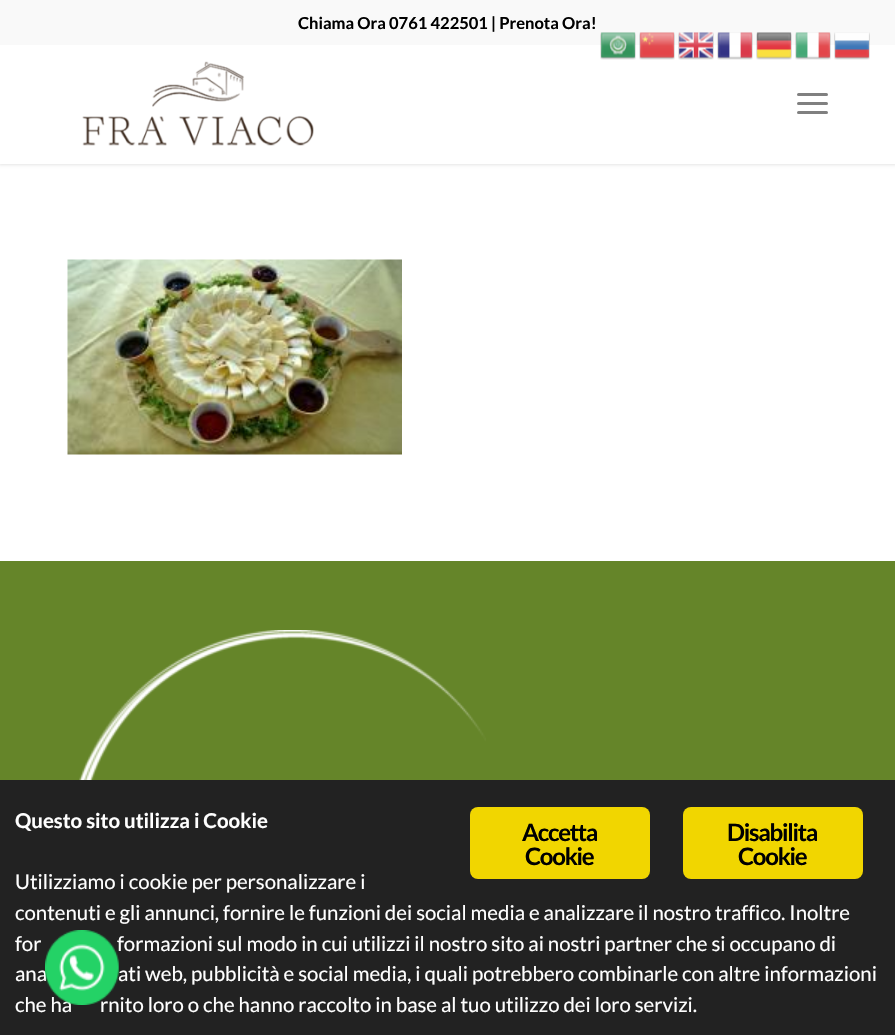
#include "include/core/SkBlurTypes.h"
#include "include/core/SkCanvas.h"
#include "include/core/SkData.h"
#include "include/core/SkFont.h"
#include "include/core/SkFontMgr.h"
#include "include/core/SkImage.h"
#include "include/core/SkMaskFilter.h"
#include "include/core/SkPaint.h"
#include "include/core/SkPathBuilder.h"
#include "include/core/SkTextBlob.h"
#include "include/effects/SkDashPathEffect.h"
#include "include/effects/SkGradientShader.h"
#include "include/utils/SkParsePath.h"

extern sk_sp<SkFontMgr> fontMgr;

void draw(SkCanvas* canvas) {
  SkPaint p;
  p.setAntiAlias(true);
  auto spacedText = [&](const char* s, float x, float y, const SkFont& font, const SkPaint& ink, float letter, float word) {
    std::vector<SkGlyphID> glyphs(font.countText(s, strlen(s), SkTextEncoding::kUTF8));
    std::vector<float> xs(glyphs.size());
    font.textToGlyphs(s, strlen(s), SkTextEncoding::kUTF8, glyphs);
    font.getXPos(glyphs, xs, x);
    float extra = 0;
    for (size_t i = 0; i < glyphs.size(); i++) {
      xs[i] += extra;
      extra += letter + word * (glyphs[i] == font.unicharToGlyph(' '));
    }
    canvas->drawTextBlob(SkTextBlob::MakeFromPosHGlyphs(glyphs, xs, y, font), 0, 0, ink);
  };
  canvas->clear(SK_ColorWHITE);
  p.setColor(SkColorSetARGB(26, 0, 0, 0));
  p.setMaskFilter(SkMaskFilter::MakeBlur(kNormal_SkBlurStyle, 1.5f));
  canvas->drawRect(SkRect::MakeLTRB(-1, -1, 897, 165), p);
  p.setMaskFilter(nullptr);
  p.setColor(SkColorSetRGB(249, 249, 249));
  canvas->drawRect(SkRect::MakeLTRB(0, 0, 895, 45), p);
  p.setColor(SK_ColorWHITE);
  canvas->drawRect(SkRect::MakeLTRB(0, 45, 895, 164), p);
  canvas->drawImageRect(SkImages::DeferredFromEncodedData(SkData::MakeFromFileName("images/1.png")), SkRect::MakeLTRB(82, 61, 314, 146), SkSamplingOptions());
  p.setColor(SkColorSetRGB(128, 128, 128));
  canvas->drawRoundRect(SkRect::MakeLTRB(797, 102, 828, 105), 1.5f, 1.5f, p);
  canvas->drawRoundRect(SkRect::MakeLTRB(797, 93, 828, 96), 1.5f, 1.5f, p);
  canvas->drawRoundRect(SkRect::MakeLTRB(797, 111, 828, 114), 1.5f, 1.5f, p);
  canvas->drawImageRect(SkImages::DeferredFromEncodedData(SkData::MakeFromFileName("images/2.png")), SkRect::MakeLTRB(67, 259, 402, 455), SkSamplingOptions());
  p.setColor(SkColorSetRGB(101, 133, 41));
  canvas->drawRect(SkRect::MakeLTRB(0, 561, 895, 780), p);
  canvas->drawImageRect(SkImages::DeferredFromEncodedData(SkData::MakeFromFileName("images/3.png")), SkRect::MakeLTRB(79, 630, 486, 780), SkSamplingOptions());
  canvas->drawImageRect(SkImages::DeferredFromEncodedData(SkData::MakeFromFileName("images/4.png")), SkRect::MakeLTRB(600, 32, 636, 60), SkSamplingOptions());
  canvas->drawImageRect(SkImages::DeferredFromEncodedData(SkData::MakeFromFileName("images/5.png")), SkRect::MakeLTRB(639, 32, 675, 60), SkSamplingOptions());
  canvas->drawImageRect(SkImages::DeferredFromEncodedData(SkData::MakeFromFileName("images/6.png")), SkRect::MakeLTRB(678, 32, 714, 60), SkSamplingOptions());
  canvas->drawImageRect(SkImages::DeferredFromEncodedData(SkData::MakeFromFileName("images/7.png")), SkRect::MakeLTRB(717, 32, 753, 60), SkSamplingOptions());
  canvas->drawImageRect(SkImages::DeferredFromEncodedData(SkData::MakeFromFileName("images/8.png")), SkRect::MakeLTRB(756, 32, 792, 60), SkSamplingOptions());
  canvas->drawImageRect(SkImages::DeferredFromEncodedData(SkData::MakeFromFileName("images/9.png")), SkRect::MakeLTRB(795, 32, 831, 60), SkSamplingOptions());
  canvas->drawImageRect(SkImages::DeferredFromEncodedData(SkData::MakeFromFileName("images/10.png")), SkRect::MakeLTRB(834, 32, 870, 60), SkSamplingOptions());
  p.setColor(SkColorSetRGB(34, 34, 34));
  canvas->drawRect(SkRect::MakeLTRB(0, 780, 895, 1035), p);
  p.setColor(SkColorSetRGB(241, 214, 0));
  canvas->drawRoundRect(SkRect::MakeLTRB(470, 807, 650, 879), 8, 8, p);
  canvas->drawRoundRect(SkRect::MakeLTRB(683, 807, 863, 879), 8, 8, p);
  SkFont font1(fontMgr->matchFamilyStyle("Lato", SkFontStyle::Bold()), 16.5f);
  font1.setSubpixel(true);
  p.setColor(SK_ColorBLACK);
  canvas->drawString("Chiama Ora 0761 422501 | Prenota Ora!", 298, 29, font1, p);
  SkFont font2(fontMgr->matchFamilyStyle("Lato", SkFontStyle::Bold()), 20.4f);
  font2.setSubpixel(true);
  p.setColor(SK_ColorWHITE);
  canvas->drawString("Questo sito utilizza i Cookie", 15, 828, font2, p);
  SkFont font3(fontMgr->matchFamilyStyle("Lato", SkFontStyle::Normal()), 20.4f);
  font3.setSubpixel(true);
  canvas->drawString("Utilizziamo i cookie per personalizzare i", 15, 889, font3, p);
  canvas->drawString("contenuti e gli annunci, fornire le funzioni dei social media e analizzare il nostro traffico. Inoltre", 15, 920, font3, p);
  canvas->drawString("for", 15, 951, font3, p);
  canvas->drawString("formazioni sul modo in cui utilizzi il nostro sito ai nostri partner che si occupano di", 117, 951, font3, p);
  canvas->drawString("ana", 15, 981, font3, p);
  canvas->drawString("ati web, pubblicità e social media, i quali potrebbero combinarle con altre informazioni", 118, 981, font3, p);
  canvas->drawString("che ha", 15, 1012, font3, p);
  canvas->drawString("rnito loro o che hanno raccolto in base al tuo utilizzo dei loro servizi.", 100, 1012, font3, p);
  SkFont font4(fontMgr->matchFamilyStyle("Lato", SkFontStyle::Bold()), 24);
  font4.setSubpixel(true);
  p.setColor(SK_ColorBLACK);
  spacedText("Accetta", 522, 841, font4, p, -1.25f, 0);
  spacedText("Cookie", 525, 865, font4, p, -1.25f, 0);
  spacedText("Disabilita", 727, 841, font4, p, -1.25f, 0);
  spacedText("Cookie", 738, 865, font4, p, -1.25f, 0);
  canvas->drawImageRect(SkImages::DeferredFromEncodedData(SkData::MakeFromFileName("images/11.png")), SkRect::MakeLTRB(45, 930, 119, 1005), SkSamplingOptions());
}
